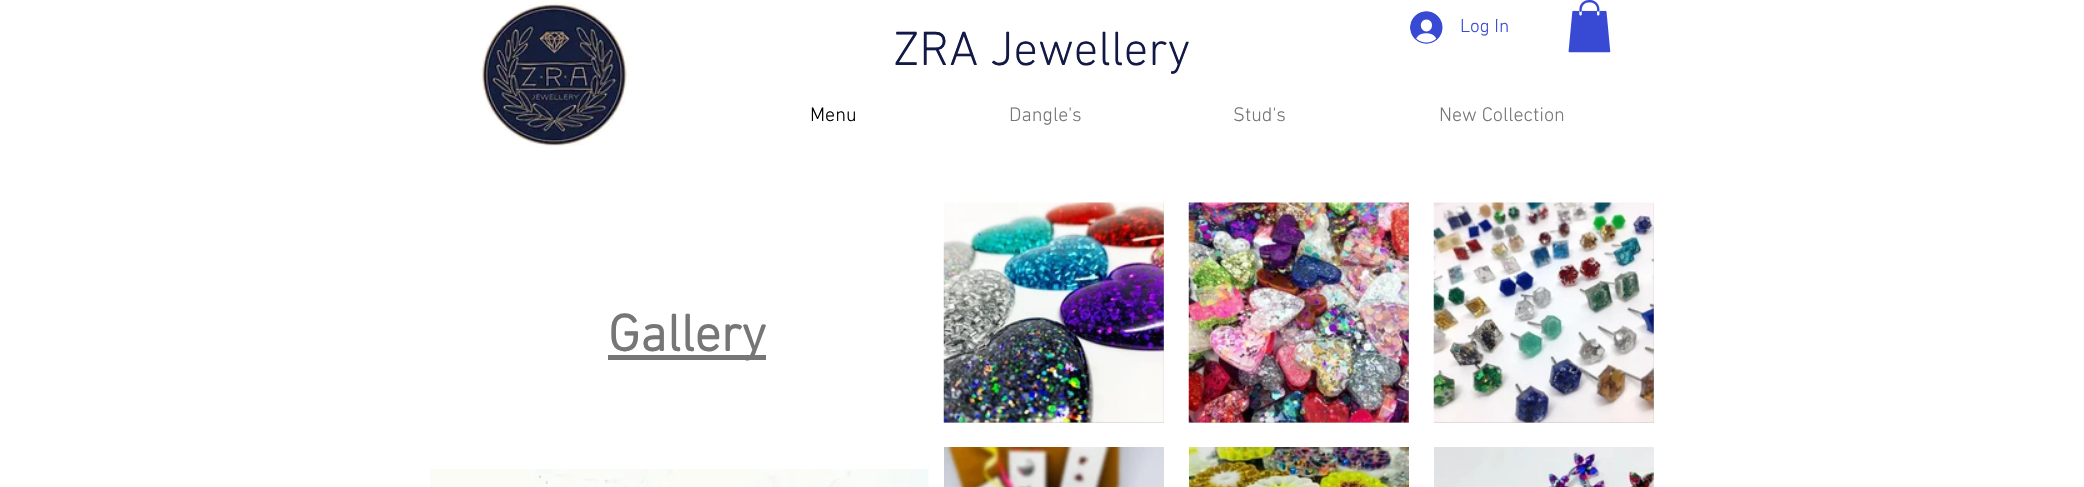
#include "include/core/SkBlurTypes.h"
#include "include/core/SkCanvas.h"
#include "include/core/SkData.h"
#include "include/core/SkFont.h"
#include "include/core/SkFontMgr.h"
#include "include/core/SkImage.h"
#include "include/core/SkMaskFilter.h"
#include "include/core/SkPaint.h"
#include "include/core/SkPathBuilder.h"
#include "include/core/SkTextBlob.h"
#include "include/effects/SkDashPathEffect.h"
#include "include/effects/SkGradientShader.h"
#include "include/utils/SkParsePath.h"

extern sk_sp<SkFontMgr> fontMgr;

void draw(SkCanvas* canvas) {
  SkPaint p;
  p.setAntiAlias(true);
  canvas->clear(SK_ColorWHITE);
  canvas->drawImageRect(SkImages::DeferredFromEncodedData(SkData::MakeFromFileName("images/1.png")), SkRect::MakeLTRB(480, 0, 630, 148), SkSamplingOptions());
  canvas->drawImageRect(SkImages::DeferredFromEncodedData(SkData::MakeFromFileName("images/2.png")), SkRect::MakeLTRB(1410, 11, 1443, 44), SkSamplingOptions());
  canvas->drawImageRect(SkImages::DeferredFromEncodedData(SkData::MakeFromFileName("images/3.png")), SkRect::MakeLTRB(1568, 0, 1611, 53), SkSamplingOptions());
  p.setColor(SkColorSetRGB(118, 118, 118));
  canvas->drawRect(SkRect::MakeLTRB(608, 355, 766, 360), p);
  p.setColor(SkColorSetRGB(199, 199, 199));
  canvas->drawRect(SkRect::MakeLTRB(944, 203, 1164, 423), p);
  canvas->drawImageRect(SkImages::DeferredFromEncodedData(SkData::MakeFromFileName("images/4.png")), SkRect::MakeLTRB(943, 202, 1164, 423), SkSamplingOptions());
  canvas->drawRect(SkRect::MakeLTRB(1189, 203, 1409, 423), p);
  canvas->drawImageRect(SkImages::DeferredFromEncodedData(SkData::MakeFromFileName("images/5.png")), SkRect::MakeLTRB(1188, 202, 1409, 423), SkSamplingOptions());
  canvas->drawRect(SkRect::MakeLTRB(1434, 203, 1654, 423), p);
  canvas->drawImageRect(SkImages::DeferredFromEncodedData(SkData::MakeFromFileName("images/6.png")), SkRect::MakeLTRB(1433, 202, 1654, 423), SkSamplingOptions());
  canvas->drawImageRect(SkImages::DeferredFromEncodedData(SkData::MakeFromFileName("images/7.png")), SkRect::MakeLTRB(944, 447, 1164, 487), SkSamplingOptions());
  canvas->drawImageRect(SkImages::DeferredFromEncodedData(SkData::MakeFromFileName("images/8.png")), SkRect::MakeLTRB(1189, 447, 1409, 487), SkSamplingOptions());
  canvas->drawImageRect(SkImages::DeferredFromEncodedData(SkData::MakeFromFileName("images/9.png")), SkRect::MakeLTRB(1434, 447, 1654, 487), SkSamplingOptions());
  canvas->drawImageRect(SkImages::DeferredFromEncodedData(SkData::MakeFromFileName("images/10.png")), SkRect::MakeLTRB(430, 469, 929, 487), SkSamplingOptions());
  SkFont font1(fontMgr->matchFamilyStyle("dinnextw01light", SkFontStyle(300, SkFontStyle::kNormal_Width, SkFontStyle::kUpright_Slant)), 19);
  font1.setSubpixel(true);
  p.setColor(SkColorSetRGB(56, 74, 211));
  canvas->drawString("Log In", 1460, 32, font1, p);
  SkFont font2(fontMgr->matchFamilyStyle("dinnextw01light", SkFontStyle(300, SkFontStyle::kNormal_Width, SkFontStyle::kUpright_Slant)), 48.75f);
  font2.setSubpixel(true);
  p.setColor(SkColorSetRGB(19, 25, 70));
  canvas->drawString("ZRA Jewellery", 893, 65, font2, p);
  SkFont font3(fontMgr->matchFamilyStyle("dinnextw01light", SkFontStyle(300, SkFontStyle::kNormal_Width, SkFontStyle::kUpright_Slant)), 20);
  font3.setSubpixel(true);
  p.setColor(SK_ColorBLACK);
  canvas->drawString("Menu", 810, 121, font3, p);
  p.setColor(SkColorSetRGB(118, 118, 118));
  canvas->drawString("Dangle's", 1009, 121, font3, p);
  canvas->drawString("Stud's", 1233, 121, font3, p);
  canvas->drawString("New Collection", 1439, 121, font3, p);
  SkFont font4(fontMgr->matchFamilyStyle("dinnextw01light", SkFontStyle::Bold()), 52.5f);
  font4.setSubpixel(true);
  canvas->drawString("Gallery", 608, 351, font4, p);
}
